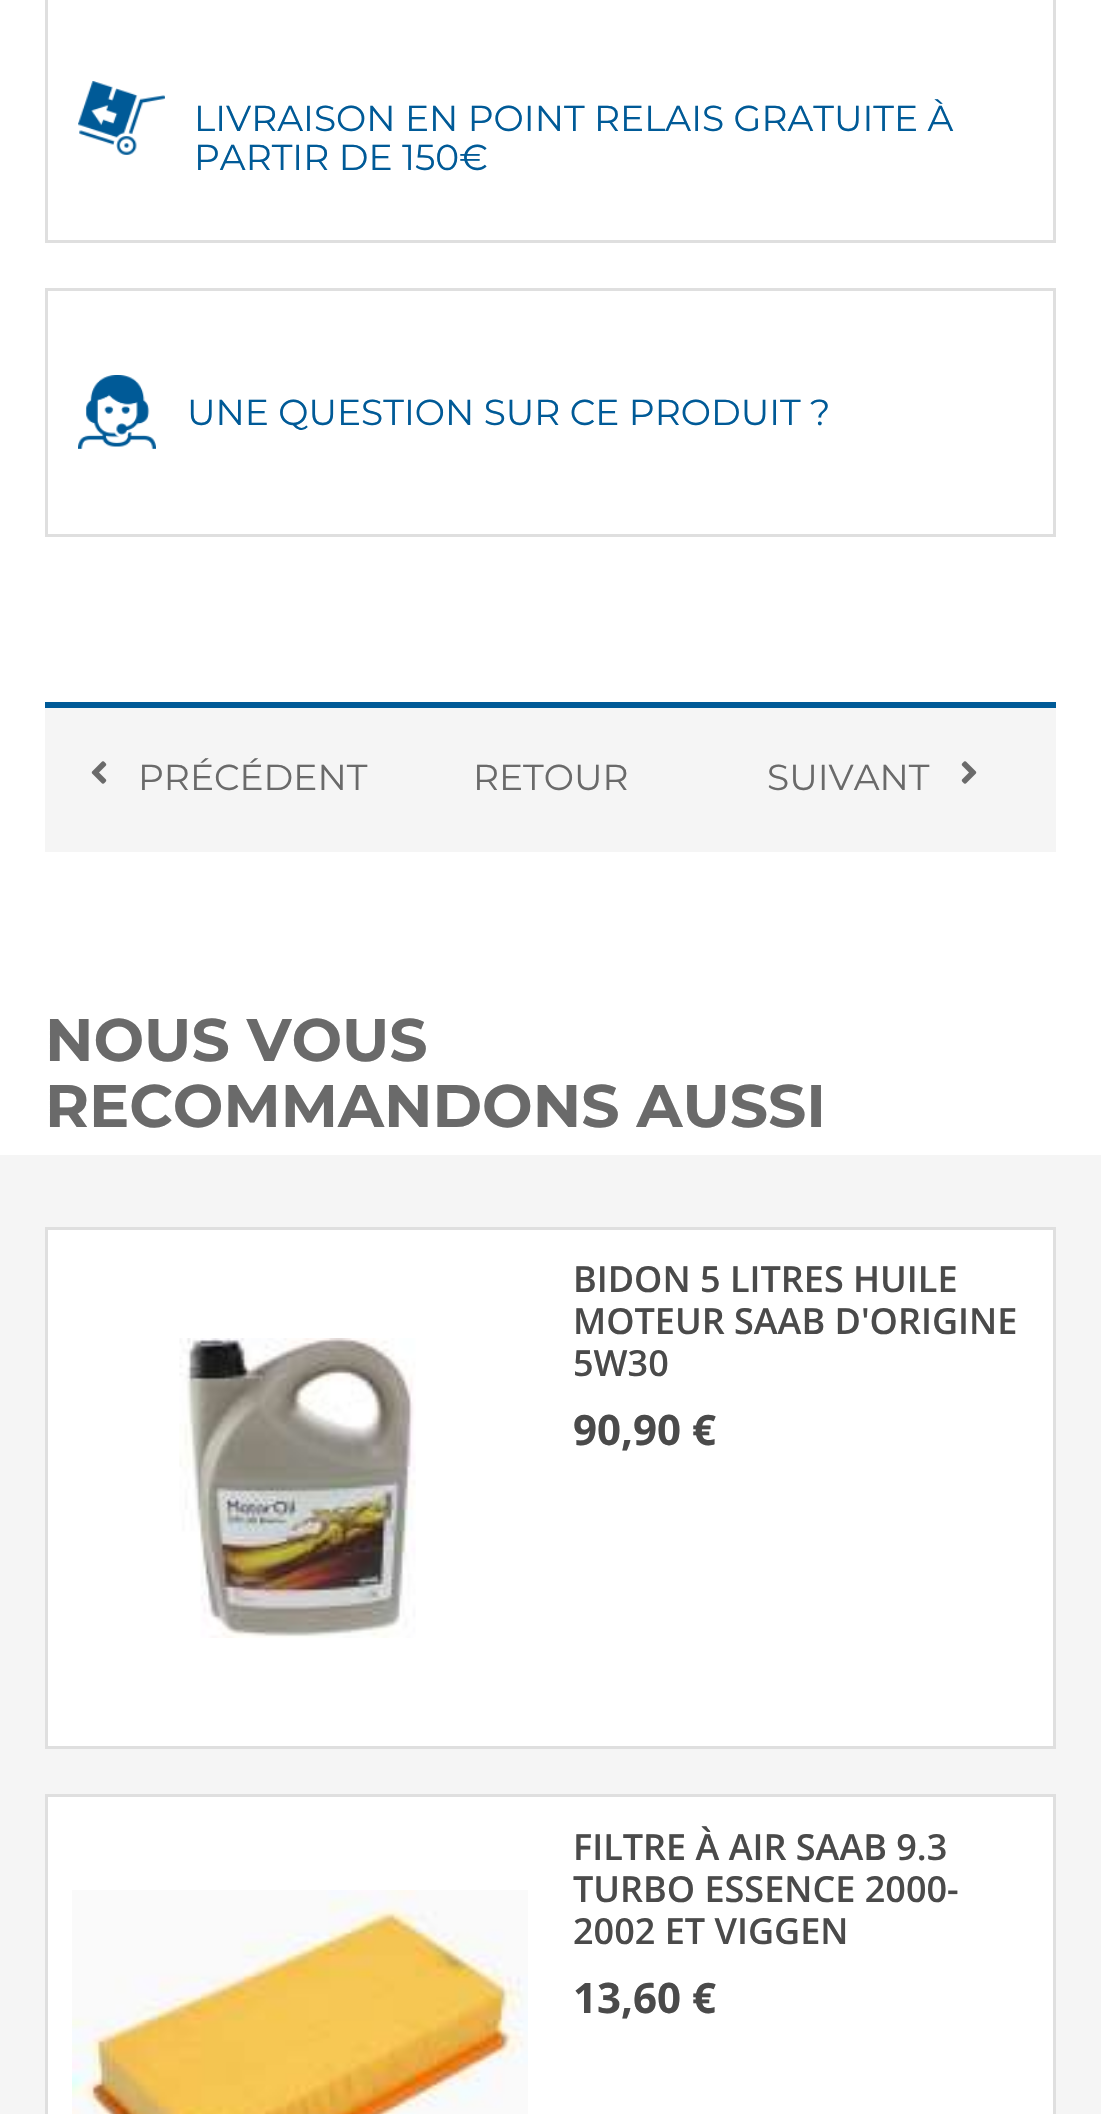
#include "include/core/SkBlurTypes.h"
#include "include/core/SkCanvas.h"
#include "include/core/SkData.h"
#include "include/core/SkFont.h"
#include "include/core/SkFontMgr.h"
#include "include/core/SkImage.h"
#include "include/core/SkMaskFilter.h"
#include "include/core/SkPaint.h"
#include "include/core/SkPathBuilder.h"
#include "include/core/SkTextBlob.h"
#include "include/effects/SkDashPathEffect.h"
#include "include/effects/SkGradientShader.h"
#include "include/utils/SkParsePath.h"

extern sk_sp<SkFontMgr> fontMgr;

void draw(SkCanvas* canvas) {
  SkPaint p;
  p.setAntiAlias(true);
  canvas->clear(SK_ColorWHITE);
  p.setStyle(SkPaint::kStroke_Style);
  p.setStrokeWidth(3);
  p.setColor(SkColorSetRGB(223, 223, 223));
  canvas->drawRect(SkRect::MakeLTRB(46.5f, -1.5f, 1054.5f, 241.5f), p);
  canvas->drawImageRect(SkImages::DeferredFromEncodedData(SkData::MakeFromFileName("images/1.png")), SkRect::MakeLTRB(78, 81, 165, 155), SkSamplingOptions());
  canvas->drawRect(SkRect::MakeLTRB(46.5f, 289.5f, 1054.5f, 535.5f), p);
  canvas->drawImageRect(SkImages::DeferredFromEncodedData(SkData::MakeFromFileName("images/2.png")), SkRect::MakeLTRB(78, 375, 156, 449), SkSamplingOptions());
  p.setStyle(SkPaint::kFill_Style);
  p.setColor(SkColorSetRGB(245, 245, 245));
  canvas->drawRect(SkRect::MakeLTRB(45, 708, 1056, 852), p);
  p.setColor(SkColorSetRGB(0, 90, 151));
  canvas->drawRect(SkRect::MakeLTRB(45, 702, 1056, 708), p);
  canvas->drawImageRect(SkImages::DeferredFromEncodedData(SkData::MakeFromFileName("images/3.png")), SkRect::MakeLTRB(91, 761, 107, 784), SkSamplingOptions());
  canvas->drawImageRect(SkImages::DeferredFromEncodedData(SkData::MakeFromFileName("images/4.png")), SkRect::MakeLTRB(961, 761, 977, 784), SkSamplingOptions());
  p.setColor(SkColorSetRGB(245, 245, 245));
  canvas->drawRect(SkRect::MakeLTRB(0, 1155, 1101, 2114), p);
  p.setColor(SK_ColorWHITE);
  canvas->drawRect(SkRect::MakeLTRB(46.5f, 1228.5f, 1054.5f, 1747.5f), p);
  p.setStyle(SkPaint::kStroke_Style);
  p.setColor(SkColorSetRGB(223, 223, 223));
  canvas->drawRect(SkRect::MakeLTRB(46.5f, 1228.5f, 1054.5f, 1747.5f), p);
  canvas->drawImageRect(SkImages::DeferredFromEncodedData(SkData::MakeFromFileName("images/5.png")), SkRect::MakeLTRB(179, 1338, 416, 1638), SkSamplingOptions());
  p.setStyle(SkPaint::kFill_Style);
  p.setColor(SK_ColorWHITE);
  canvas->drawRect(SkRect::MakeLTRB(46.5f, 1795.5f, 1054.5f, 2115.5f), p);
  p.setStyle(SkPaint::kStroke_Style);
  p.setColor(SkColorSetRGB(223, 223, 223));
  canvas->drawRect(SkRect::MakeLTRB(46.5f, 1795.5f, 1054.5f, 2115.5f), p);
  canvas->drawImageRect(SkImages::DeferredFromEncodedData(SkData::MakeFromFileName("images/6.png")), SkRect::MakeLTRB(72, 1890, 528, 2114), SkSamplingOptions());
  SkFont font1(fontMgr->matchFamilyStyle("Montserrat", SkFontStyle::Normal()), 36);
  font1.setSubpixel(true);
  p.setStyle(SkPaint::kFill_Style);
  p.setColor(SkColorSetRGB(0, 90, 151));
  canvas->drawString("LIVRAISON EN POINT RELAIS GRATUITE À", 194, 131, font1, p);
  canvas->drawString("PARTIR DE 150€", 194, 170, font1, p);
  canvas->drawString("UNE QUESTION SUR CE PRODUIT ?", 187, 425, font1, p);
  p.setColor(SkColorSetRGB(106, 106, 106));
  canvas->drawString("PRÉCÉDENT", 138, 790, font1, p);
  canvas->drawString("RETOUR", 473, 790, font1, p);
  canvas->drawString("SUIVANT", 767, 790, font1, p);
  SkFont font2(fontMgr->matchFamilyStyle("Montserrat", SkFontStyle::Bold()), 60);
  font2.setSubpixel(true);
  canvas->drawString("NOUS VOUS", 45, 1061, font2, p);
  canvas->drawString("RECOMMANDONS AUSSI", 45, 1127, font2, p);
  SkFont font3(fontMgr->matchFamilyStyle("Open Sans", SkFontStyle(600, SkFontStyle::kNormal_Width, SkFontStyle::kUpright_Slant)), 36);
  font3.setSubpixel(true);
  p.setColor(SkColorSetRGB(74, 74, 74));
  canvas->drawString("BIDON 5 LITRES HUILE", 573, 1292, font3, p);
  canvas->drawString("MOTEUR SAAB D'ORIGINE", 573, 1334, font3, p);
  canvas->drawString("5W30", 573, 1376, font3, p);
  SkFont font4(fontMgr->matchFamilyStyle("Open Sans", SkFontStyle::Bold()), 42);
  font4.setSubpixel(true);
  canvas->drawString("90,90 €", 573, 1445, font4, p);
  canvas->drawString("FILTRE À AIR SAAB 9.3", 573, 1860, font3, p);
  canvas->drawString("TURBO ESSENCE 2000-", 573, 1902, font3, p);
  canvas->drawString("2002 ET VIGGEN", 573, 1944, font3, p);
  canvas->drawString("13,60 €", 573, 2013, font4, p);
}
